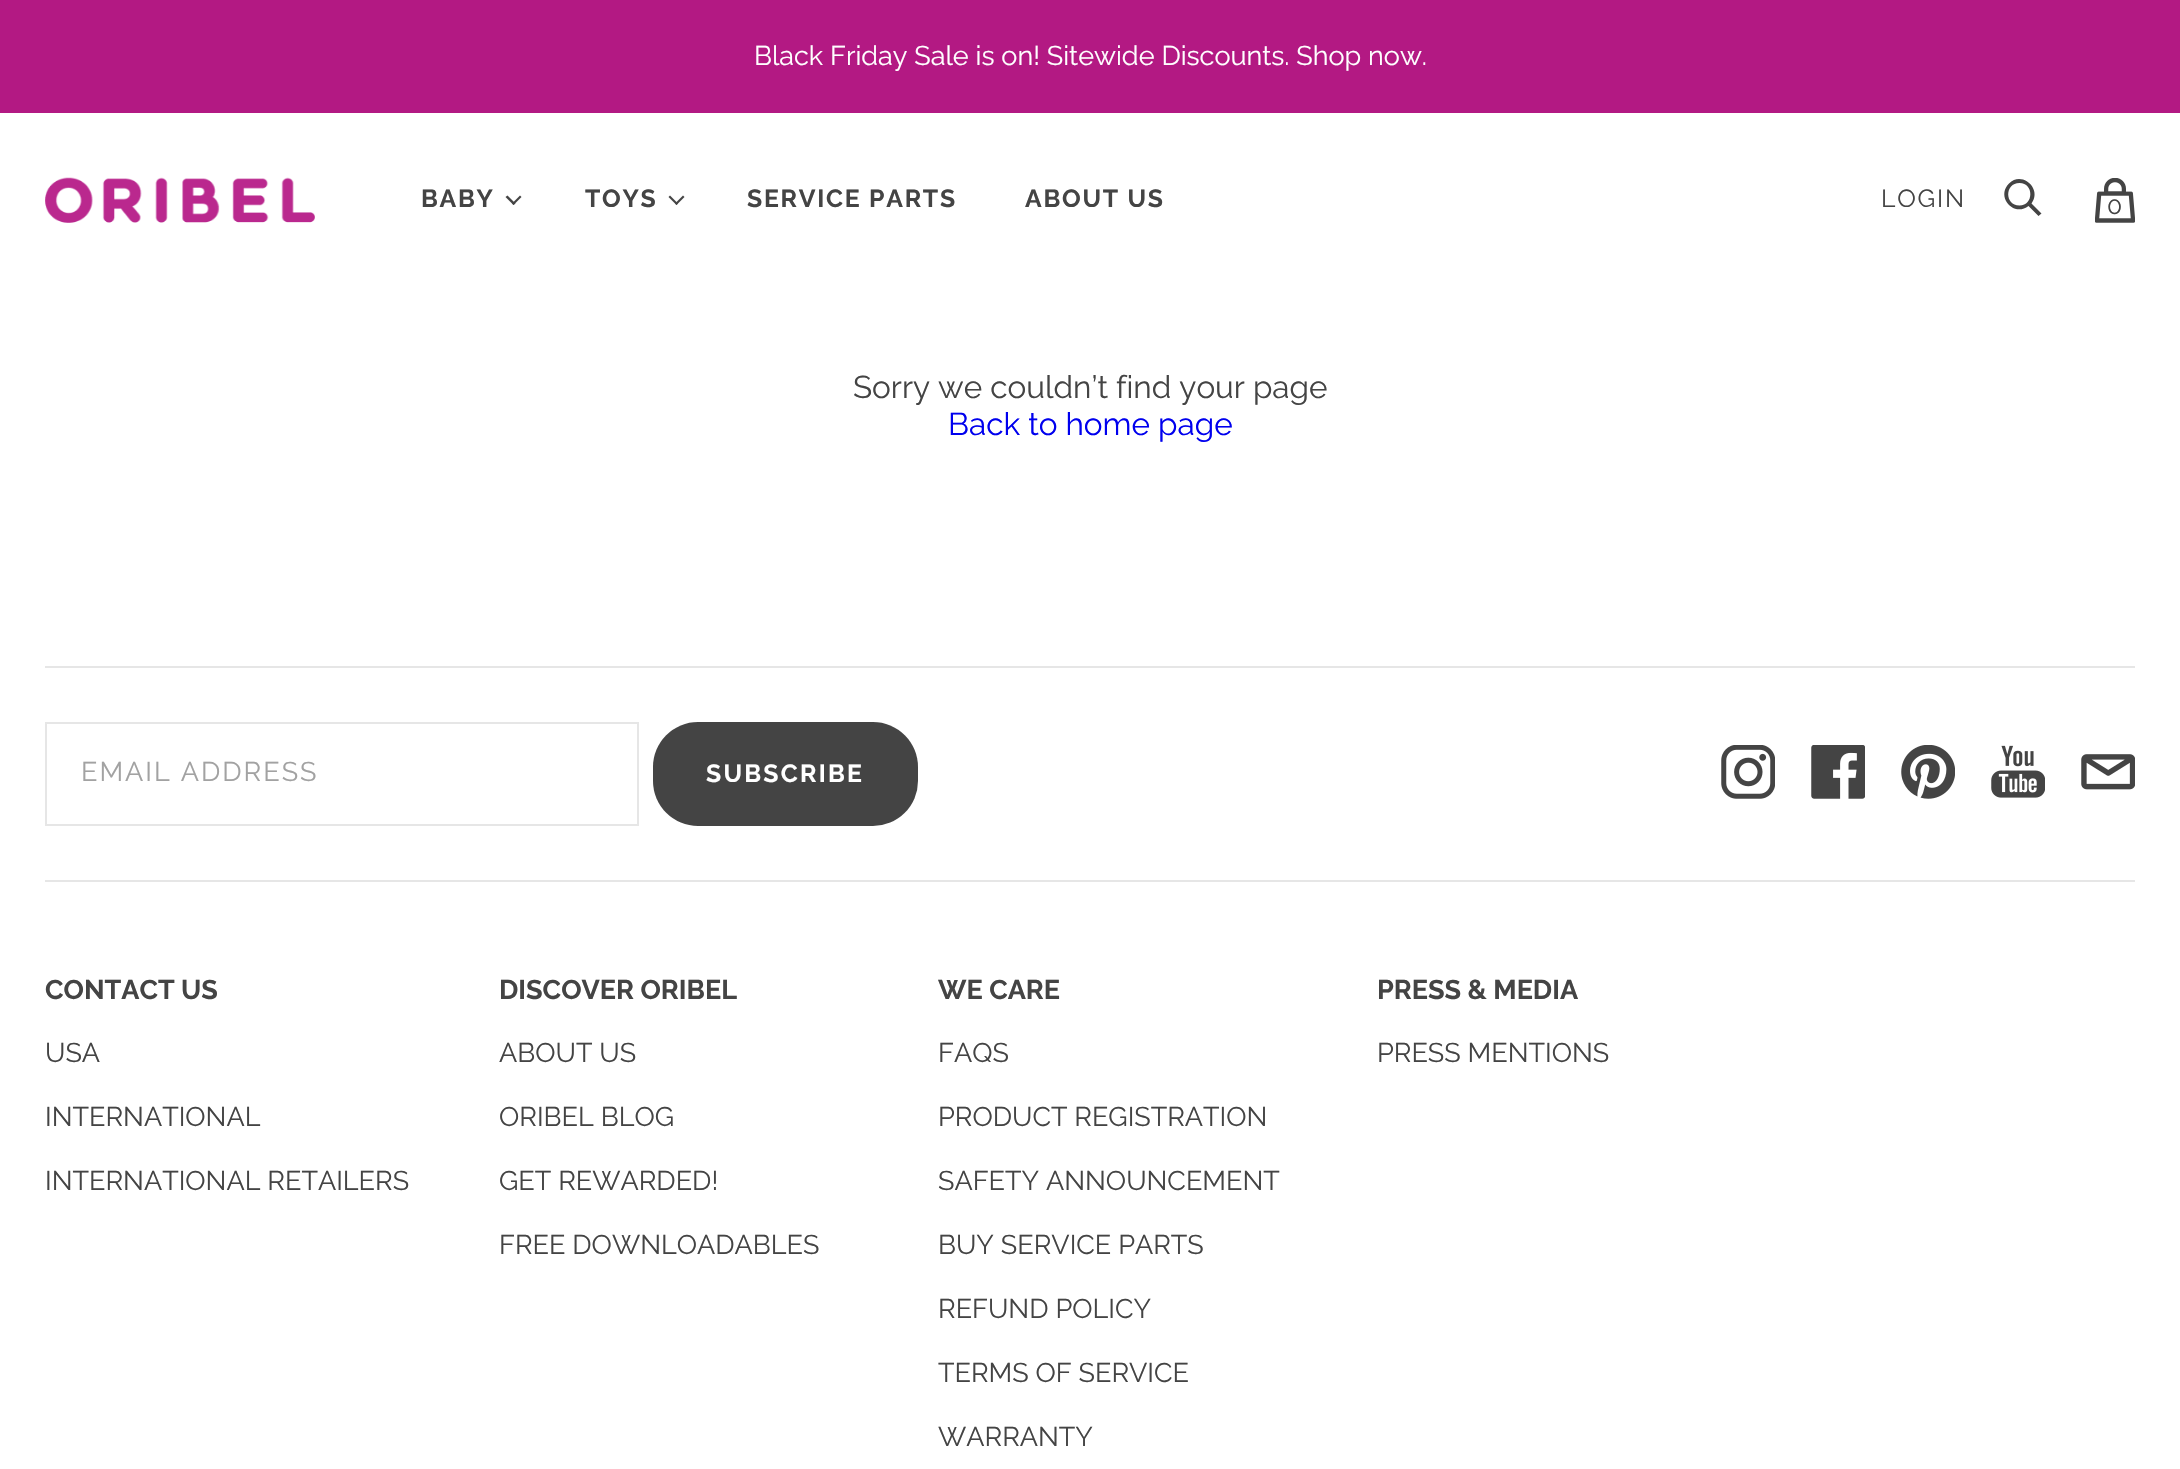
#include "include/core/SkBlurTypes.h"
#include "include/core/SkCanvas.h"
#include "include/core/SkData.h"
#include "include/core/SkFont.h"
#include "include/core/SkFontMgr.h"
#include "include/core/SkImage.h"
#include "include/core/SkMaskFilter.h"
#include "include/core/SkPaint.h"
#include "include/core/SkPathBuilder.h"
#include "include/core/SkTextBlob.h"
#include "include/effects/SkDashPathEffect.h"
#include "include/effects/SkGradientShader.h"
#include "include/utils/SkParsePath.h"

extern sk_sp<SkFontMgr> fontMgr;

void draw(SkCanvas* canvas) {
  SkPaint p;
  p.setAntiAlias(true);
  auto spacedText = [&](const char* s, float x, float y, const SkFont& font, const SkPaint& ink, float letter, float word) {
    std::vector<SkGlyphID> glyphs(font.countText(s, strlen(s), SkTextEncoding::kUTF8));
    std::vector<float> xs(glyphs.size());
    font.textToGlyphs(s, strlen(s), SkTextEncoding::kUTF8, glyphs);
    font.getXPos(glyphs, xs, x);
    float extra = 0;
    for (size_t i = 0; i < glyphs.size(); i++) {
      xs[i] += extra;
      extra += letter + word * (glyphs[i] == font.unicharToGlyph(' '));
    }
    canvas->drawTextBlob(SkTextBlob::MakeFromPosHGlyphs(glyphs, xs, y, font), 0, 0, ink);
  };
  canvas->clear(SK_ColorWHITE);
  p.setColor(SkColorSetRGB(179, 25, 131));
  canvas->drawRect(SkRect::MakeLTRB(0, 0, 2180, 113), p);
  canvas->drawImageRect(SkImages::DeferredFromEncodedData(SkData::MakeFromFileName("images/1.png")), SkRect::MakeLTRB(45, 177, 315, 223), SkSamplingOptions());
  p.setColor(SkColorSetRGB(68, 68, 68));
  canvas->drawPath(SkPathBuilder().moveTo(512, 203.5f).lineTo(520, 195.5f).lineTo(521.5f, 197).lineTo(513.5f, 205).close().detach(), p);
  canvas->drawPath(SkPathBuilder().moveTo(505.5f, 197).lineTo(507.5f, 195.5f).lineTo(515.5f, 203.5f).lineTo(513.5f, 205).close().detach(), p);
  canvas->drawPath(SkPathBuilder().moveTo(675, 203.5f).lineTo(683, 195.5f).lineTo(684.5f, 197).lineTo(676.5f, 205).close().detach(), p);
  canvas->drawPath(SkPathBuilder().moveTo(668.5f, 197).lineTo(670, 195.5f).lineTo(678, 203.5f).lineTo(676.5f, 205).close().detach(), p);
  canvas->drawPath(SkPathBuilder().moveTo(2041.5f, 213.5f).lineTo(2031.5f, 203.5f).cubicTo(2042.5f, 189, 2022, 170.5f, 2009, 183.5f).cubicTo(1995.5f, 197, 2014, 217.5f, 2028.5f, 206).lineTo(2038.5f, 216).close().moveTo(2019.5f, 205.5f).cubicTo(2004.5f, 205.5f, 2004.5f, 183, 2019.5f, 183).cubicTo(2034, 183, 2034, 205.5f, 2019.5f, 205.5f).close().detach(), p);
  canvas->drawImageRect(SkImages::DeferredFromEncodedData(SkData::MakeFromFileName("images/2.png")), SkRect::MakeLTRB(2095, 178, 2135, 223), SkSamplingOptions());
  p.setColor(SkColorSetRGB(230, 230, 230));
  canvas->drawRect(SkRect::MakeLTRB(45, 666, 2135, 668), p);
  p.setStyle(SkPaint::kStroke_Style);
  p.setStrokeWidth(2);
  canvas->drawRect(SkRect::MakeLTRB(46, 723, 638, 825), p);
  p.setStyle(SkPaint::kFill_Style);
  p.setColor(SkColorSetRGB(68, 68, 68));
  canvas->drawRoundRect(SkRect::MakeLTRB(653, 722, 918, 826), 45, 45, p);
  canvas->drawImageRect(SkImages::DeferredFromEncodedData(SkData::MakeFromFileName("images/3.png")), SkRect::MakeLTRB(1721, 745, 1775, 799), SkSamplingOptions());
  canvas->drawImageRect(SkImages::DeferredFromEncodedData(SkData::MakeFromFileName("images/4.png")), SkRect::MakeLTRB(1811, 745, 1865, 799), SkSamplingOptions());
  canvas->drawImageRect(SkImages::DeferredFromEncodedData(SkData::MakeFromFileName("images/5.png")), SkRect::MakeLTRB(1901, 745, 1955, 799), SkSamplingOptions());
  canvas->drawImageRect(SkImages::DeferredFromEncodedData(SkData::MakeFromFileName("images/6.png")), SkRect::MakeLTRB(1991, 745, 2045, 798), SkSamplingOptions());
  canvas->drawImageRect(SkImages::DeferredFromEncodedData(SkData::MakeFromFileName("images/7.png")), SkRect::MakeLTRB(2081, 754, 2135, 790), SkSamplingOptions());
  p.setColor(SkColorSetRGB(230, 230, 230));
  canvas->drawRect(SkRect::MakeLTRB(45, 880, 2135, 882), p);
  SkFont font1(fontMgr->matchFamilyStyle("Raleway", SkFontStyle(100, SkFontStyle::kNormal_Width, SkFontStyle::kUpright_Slant)), 27);
  font1.setSubpixel(true);
  p.setColor(SK_ColorWHITE);
  canvas->drawString("Black Friday Sale is on! Sitewide Discounts. Shop now.", 754, 65, font1, p);
  SkFont font2(fontMgr->matchFamilyStyle("Raleway", SkFontStyle::Bold()), 24.75f);
  font2.setSubpixel(true);
  p.setColor(SkColorSetRGB(68, 68, 68));
  spacedText("BABY", 421, 207, font2, p, 1.75f, 0);
  spacedText("TOYS", 585, 207, font2, p, 1.75f, 0);
  spacedText("SERVICE PARTS", 747, 207, font2, p, 1.75f, 0);
  spacedText("ABOUT US", 1025, 207, font2, p, 1.75f, 0);
  SkFont font3(fontMgr->matchFamilyStyle("Raleway", SkFontStyle(100, SkFontStyle::kNormal_Width, SkFontStyle::kUpright_Slant)), 24.75f);
  font3.setSubpixel(true);
  spacedText("LOGIN", 1881, 207, font3, p, 1.75f, 0);
  canvas->drawString("0", 2107, 214, font3, p);
  SkFont font4(fontMgr->matchFamilyStyle("Raleway", SkFontStyle(100, SkFontStyle::kNormal_Width, SkFontStyle::kUpright_Slant)), 31.5f);
  font4.setSubpixel(true);
  canvas->drawString("Sorry we couldn’t find your page", 853, 398, font4, p);
  p.setColor(SkColorSetRGB(0, 0, 238));
  canvas->drawString("Back to home page", 948, 435, font4, p);
  p.setColor(SkColorSetRGB(162, 162, 162));
  spacedText("EMAIL ADDRESS", 81, 781, font1, p, 2, 0);
  p.setColor(SK_ColorWHITE);
  spacedText("SUBSCRIBE", 706, 782, font2, p, 2.25f, 0);
  SkFont font5(fontMgr->matchFamilyStyle("Raleway", SkFontStyle::Bold()), 27);
  font5.setSubpixel(true);
  p.setColor(SkColorSetRGB(68, 68, 68));
  canvas->drawString("CONTACT US", 45, 999, font5, p);
  canvas->drawString("USA", 45, 1062, font1, p);
  canvas->drawString("INTERNATIONAL", 45, 1126, font1, p);
  canvas->drawString("INTERNATIONAL RETAILERS", 45, 1190, font1, p);
  canvas->drawString("DISCOVER ORIBEL", 499, 999, font5, p);
  canvas->drawString("ABOUT US", 499, 1062, font1, p);
  canvas->drawString("ORIBEL BLOG", 499, 1126, font1, p);
  canvas->drawString("GET REWARDED!", 499, 1190, font1, p);
  canvas->drawString("FREE DOWNLOADABLES", 499, 1254, font1, p);
  canvas->drawString("WE CARE", 938, 999, font5, p);
  canvas->drawString("FAQS", 938, 1062, font1, p);
  canvas->drawString("PRODUCT REGISTRATION", 938, 1126, font1, p);
  canvas->drawString("SAFETY ANNOUNCEMENT", 938, 1190, font1, p);
  canvas->drawString("BUY SERVICE PARTS", 938, 1254, font1, p);
  canvas->drawString("REFUND POLICY", 938, 1318, font1, p);
  canvas->drawString("TERMS OF SERVICE", 938, 1382, font1, p);
  canvas->drawString("WARRANTY", 938, 1446, font1, p);
  canvas->drawString("PRESS & MEDIA", 1377, 999, font5, p);
  canvas->drawString("PRESS MENTIONS", 1377, 1062, font1, p);
}
